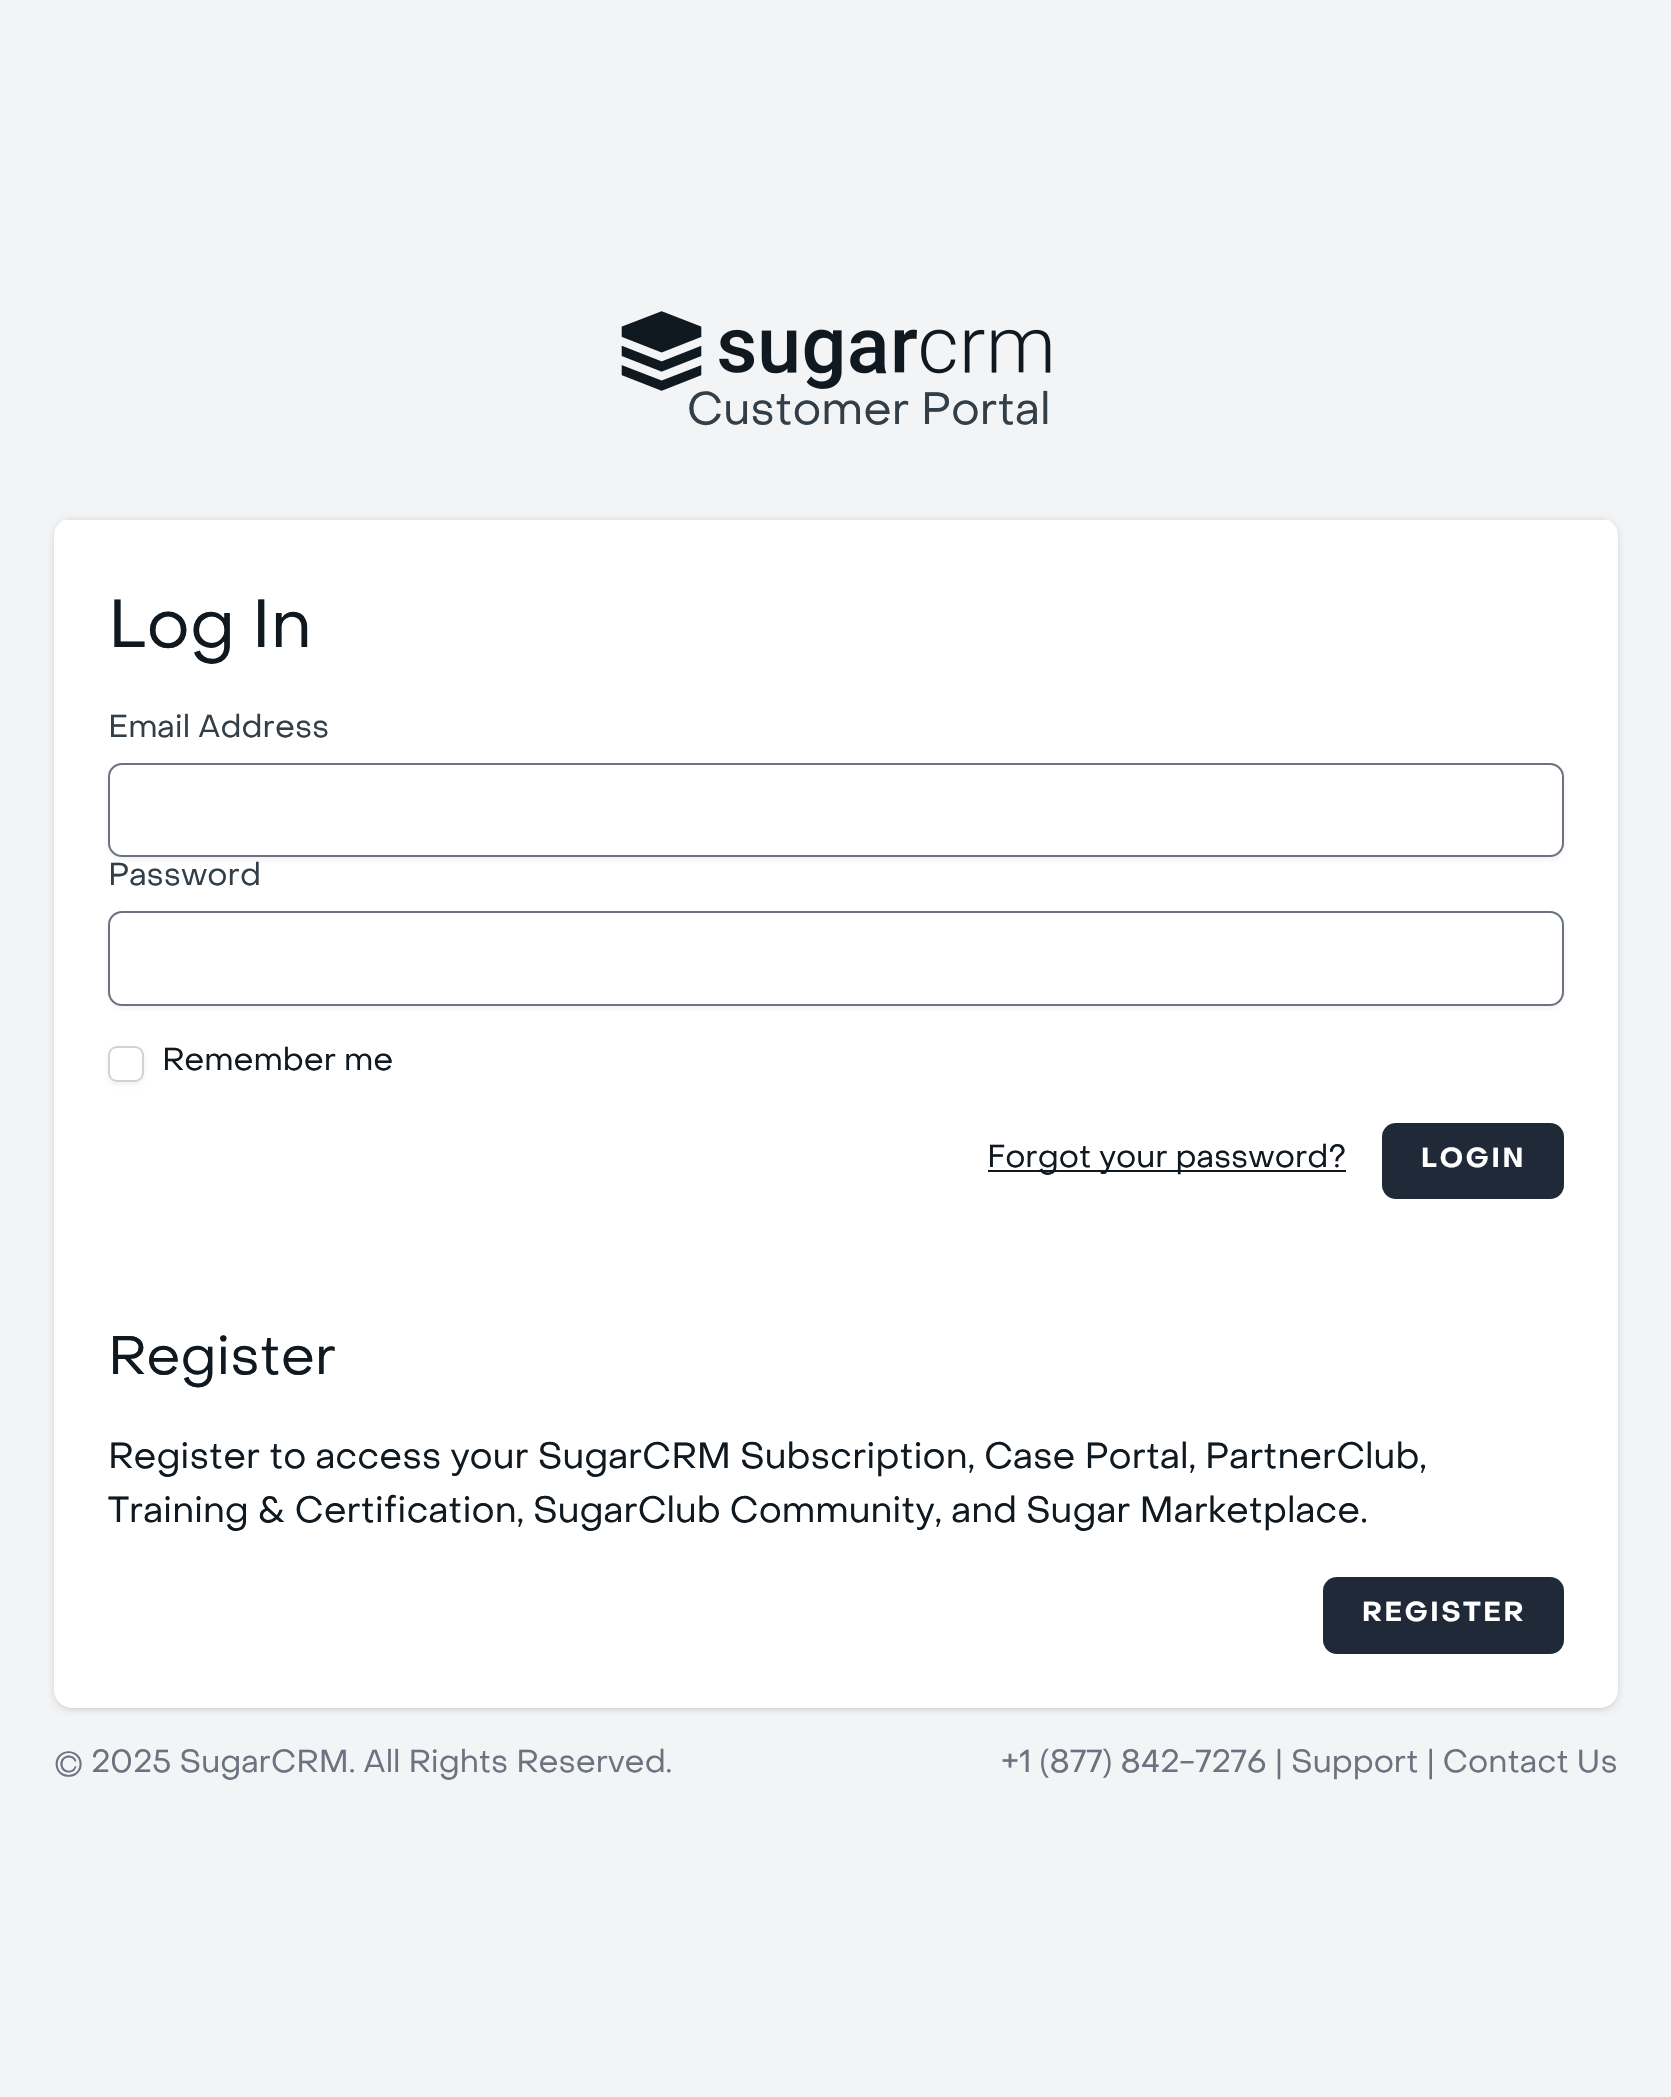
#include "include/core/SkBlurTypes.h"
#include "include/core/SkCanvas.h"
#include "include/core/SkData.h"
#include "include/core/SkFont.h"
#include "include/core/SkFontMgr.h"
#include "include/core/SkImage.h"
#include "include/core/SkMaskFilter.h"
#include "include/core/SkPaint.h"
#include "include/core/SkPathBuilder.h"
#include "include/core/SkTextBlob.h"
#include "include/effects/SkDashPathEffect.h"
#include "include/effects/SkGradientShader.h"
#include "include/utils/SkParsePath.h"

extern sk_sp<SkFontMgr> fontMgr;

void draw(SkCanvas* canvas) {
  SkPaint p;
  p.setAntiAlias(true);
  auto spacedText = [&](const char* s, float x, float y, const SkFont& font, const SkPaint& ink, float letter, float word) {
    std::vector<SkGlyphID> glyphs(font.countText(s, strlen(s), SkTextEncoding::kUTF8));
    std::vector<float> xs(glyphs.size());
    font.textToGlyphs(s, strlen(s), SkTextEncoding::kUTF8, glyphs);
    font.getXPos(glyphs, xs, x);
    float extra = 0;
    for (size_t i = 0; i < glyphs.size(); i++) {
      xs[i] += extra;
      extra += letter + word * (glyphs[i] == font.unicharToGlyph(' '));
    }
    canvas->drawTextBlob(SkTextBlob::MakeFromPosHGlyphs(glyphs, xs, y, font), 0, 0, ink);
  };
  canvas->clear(SkColorSetRGB(243, 244, 246));
  canvas->drawImageRect(SkImages::DeferredFromEncodedData(SkData::MakeFromFileName("images/1.png")), SkRect::MakeLTRB(621, 311, 1051, 391), SkSamplingOptions());
  p.setColor(SkColorSetARGB(26, 0, 0, 0));
  p.setMaskFilter(SkMaskFilter::MakeBlur(kNormal_SkBlurStyle, 2));
  canvas->drawRoundRect(SkRect::MakeLTRB(56, 522, 1616, 1708), 16, 16, p);
  p.setMaskFilter(nullptr);
  p.setMaskFilter(SkMaskFilter::MakeBlur(kNormal_SkBlurStyle, 3.5f));
  canvas->drawRoundRect(SkRect::MakeLTRB(54, 520, 1618, 1710), 18, 18, p);
  p.setMaskFilter(nullptr);
  p.setColor(SK_ColorWHITE);
  canvas->drawRoundRect(SkRect::MakeLTRB(54, 518, 1618, 1708), 18, 18, p);
  canvas->save();
  canvas->clipPath(SkPathBuilder().moveTo(72, 518).lineTo(1600, 518).cubicTo(1610, 518, 1618, 526, 1618, 536).lineTo(1618, 1690).cubicTo(1618, 1700, 1610, 1708, 1600, 1708).lineTo(72, 1708).cubicTo(62, 1708, 54, 1700, 54, 1690).lineTo(54, 536).cubicTo(54, 526, 62, 518, 72, 518).close().detach(), true);
  p.setColor(SkColorSetRGB(232, 232, 232));
  canvas->drawRect(SkRect::MakeLTRB(64, 518, 1608, 520), p);
  canvas->restore();
  p.setColor(SkColorSetARGB(13, 0, 0, 0));
  p.setMaskFilter(SkMaskFilter::MakeBlur(kNormal_SkBlurStyle, 2));
  canvas->drawRoundRect(SkRect::MakeLTRB(108, 765, 1564, 860), 14, 14, p);
  p.setMaskFilter(nullptr);
  p.setColor(SK_ColorWHITE);
  canvas->drawRoundRect(SkRect::MakeLTRB(109, 764, 1563, 856), 13, 13, p);
  p.setStyle(SkPaint::kStroke_Style);
  p.setStrokeWidth(2);
  p.setColor(SkColorSetRGB(107, 114, 128));
  canvas->drawRoundRect(SkRect::MakeLTRB(109, 764, 1563, 856), 13, 13, p);
  p.setStyle(SkPaint::kFill_Style);
  p.setColor(SkColorSetARGB(13, 0, 0, 0));
  p.setMaskFilter(SkMaskFilter::MakeBlur(kNormal_SkBlurStyle, 2));
  canvas->drawRoundRect(SkRect::MakeLTRB(108, 914, 1564, 1008), 14, 14, p);
  p.setMaskFilter(nullptr);
  p.setColor(SK_ColorWHITE);
  canvas->drawRoundRect(SkRect::MakeLTRB(109, 912, 1563, 1005), 13, 13, p);
  p.setStyle(SkPaint::kStroke_Style);
  p.setColor(SkColorSetRGB(107, 114, 128));
  canvas->drawRoundRect(SkRect::MakeLTRB(109, 912, 1563, 1005), 13, 13, p);
  canvas->save();
  canvas->clipPath(SkPathBuilder(SkPathFillType::kEvenOdd).moveTo(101, 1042).lineTo(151, 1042).lineTo(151, 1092).lineTo(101, 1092).close().moveTo(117, 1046).lineTo(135, 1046).cubicTo(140, 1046, 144, 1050, 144, 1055).lineTo(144, 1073).cubicTo(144, 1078, 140, 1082, 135, 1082).lineTo(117, 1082).cubicTo(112, 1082, 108, 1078, 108, 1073).lineTo(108, 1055).cubicTo(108, 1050, 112, 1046, 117, 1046).close().detach(), true);
  p.setStyle(SkPaint::kFill_Style);
  p.setColor(SkColorSetARGB(13, 0, 0, 0));
  p.setMaskFilter(SkMaskFilter::MakeBlur(kNormal_SkBlurStyle, 2));
  canvas->drawRoundRect(SkRect::MakeLTRB(108, 1049, 144, 1085), 9, 9, p);
  p.setMaskFilter(nullptr);
  canvas->restore();
  p.setStyle(SkPaint::kStroke_Style);
  p.setColor(SkColorSetRGB(208, 211, 212));
  canvas->drawRoundRect(SkRect::MakeLTRB(109, 1047, 143, 1081), 8, 8, p);
  p.setStyle(SkPaint::kFill_Style);
  p.setColor(SkColorSetRGB(16, 24, 32));
  canvas->drawRect(SkRect::MakeLTRB(988, 1170, 1346, 1172), p);
  p.setColor(SkColorSetRGB(31, 41, 55));
  canvas->drawRoundRect(SkRect::MakeLTRB(1382, 1123, 1564, 1199), 14, 14, p);
  canvas->drawRoundRect(SkRect::MakeLTRB(1323, 1577, 1564, 1654), 14, 14, p);
  SkFont font1(fontMgr->matchFamilyStyle("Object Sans", SkFontStyle::Normal()), 45);
  font1.setSubpixel(true);
  p.setColor(SkColorSetRGB(51, 63, 72));
  canvas->drawString("Customer Portal", 687, 424, font1, p);
  SkFont font2(fontMgr->matchFamilyStyle("Object Sans", SkFontStyle::Normal()), 67.5f);
  font2.setSubpixel(true);
  p.setColor(SkColorSetRGB(16, 24, 32));
  canvas->drawString("Log In", 108, 647, font2, p);
  SkFont font3(fontMgr->matchFamilyStyle("Object Sans", SkFontStyle::Normal()), 31.5f);
  font3.setSubpixel(true);
  p.setColor(SkColorSetRGB(51, 63, 72));
  canvas->drawString("Email Address", 108, 737, font3, p);
  canvas->drawString("Password", 108, 885, font3, p);
  p.setColor(SkColorSetRGB(16, 24, 32));
  canvas->drawString("Remember me", 162, 1070, font3, p);
  canvas->drawString("Forgot your password?", 987, 1167, font3, p);
  SkFont font4(fontMgr->matchFamilyStyle("Object Sans", SkFontStyle::Bold()), 27);
  font4.setSubpixel(true);
  p.setColor(SK_ColorWHITE);
  spacedText("LOGIN", 1421, 1167, font4, p, 2.75f, 0);
  SkFont font5(fontMgr->matchFamilyStyle("Object Sans", SkFontStyle::Normal()), 54);
  font5.setSubpixel(true);
  p.setColor(SkColorSetRGB(16, 24, 32));
  canvas->drawString("Register", 108, 1374, font5, p);
  SkFont font6(fontMgr->matchFamilyStyle("Object Sans", SkFontStyle::Normal()), 36);
  font6.setSubpixel(true);
  canvas->drawString("Register to access your SugarCRM Subscription, Case Portal, PartnerClub,", 108, 1468, font6, p);
  canvas->drawString("Training & Certification, SugarClub Community, and Sugar Marketplace.", 108, 1522, font6, p);
  p.setColor(SK_ColorWHITE);
  spacedText("REGISTER", 1362, 1621, font4, p, 2.75f, 0);
  p.setColor(SkColorSetRGB(107, 114, 128));
  canvas->drawString("© 2025 SugarCRM. All Rights Reserved.", 54, 1772, font3, p);
  canvas->drawString("+1 (877) 842-7276 | Support | Contact Us", 1001, 1772, font3, p);
}
